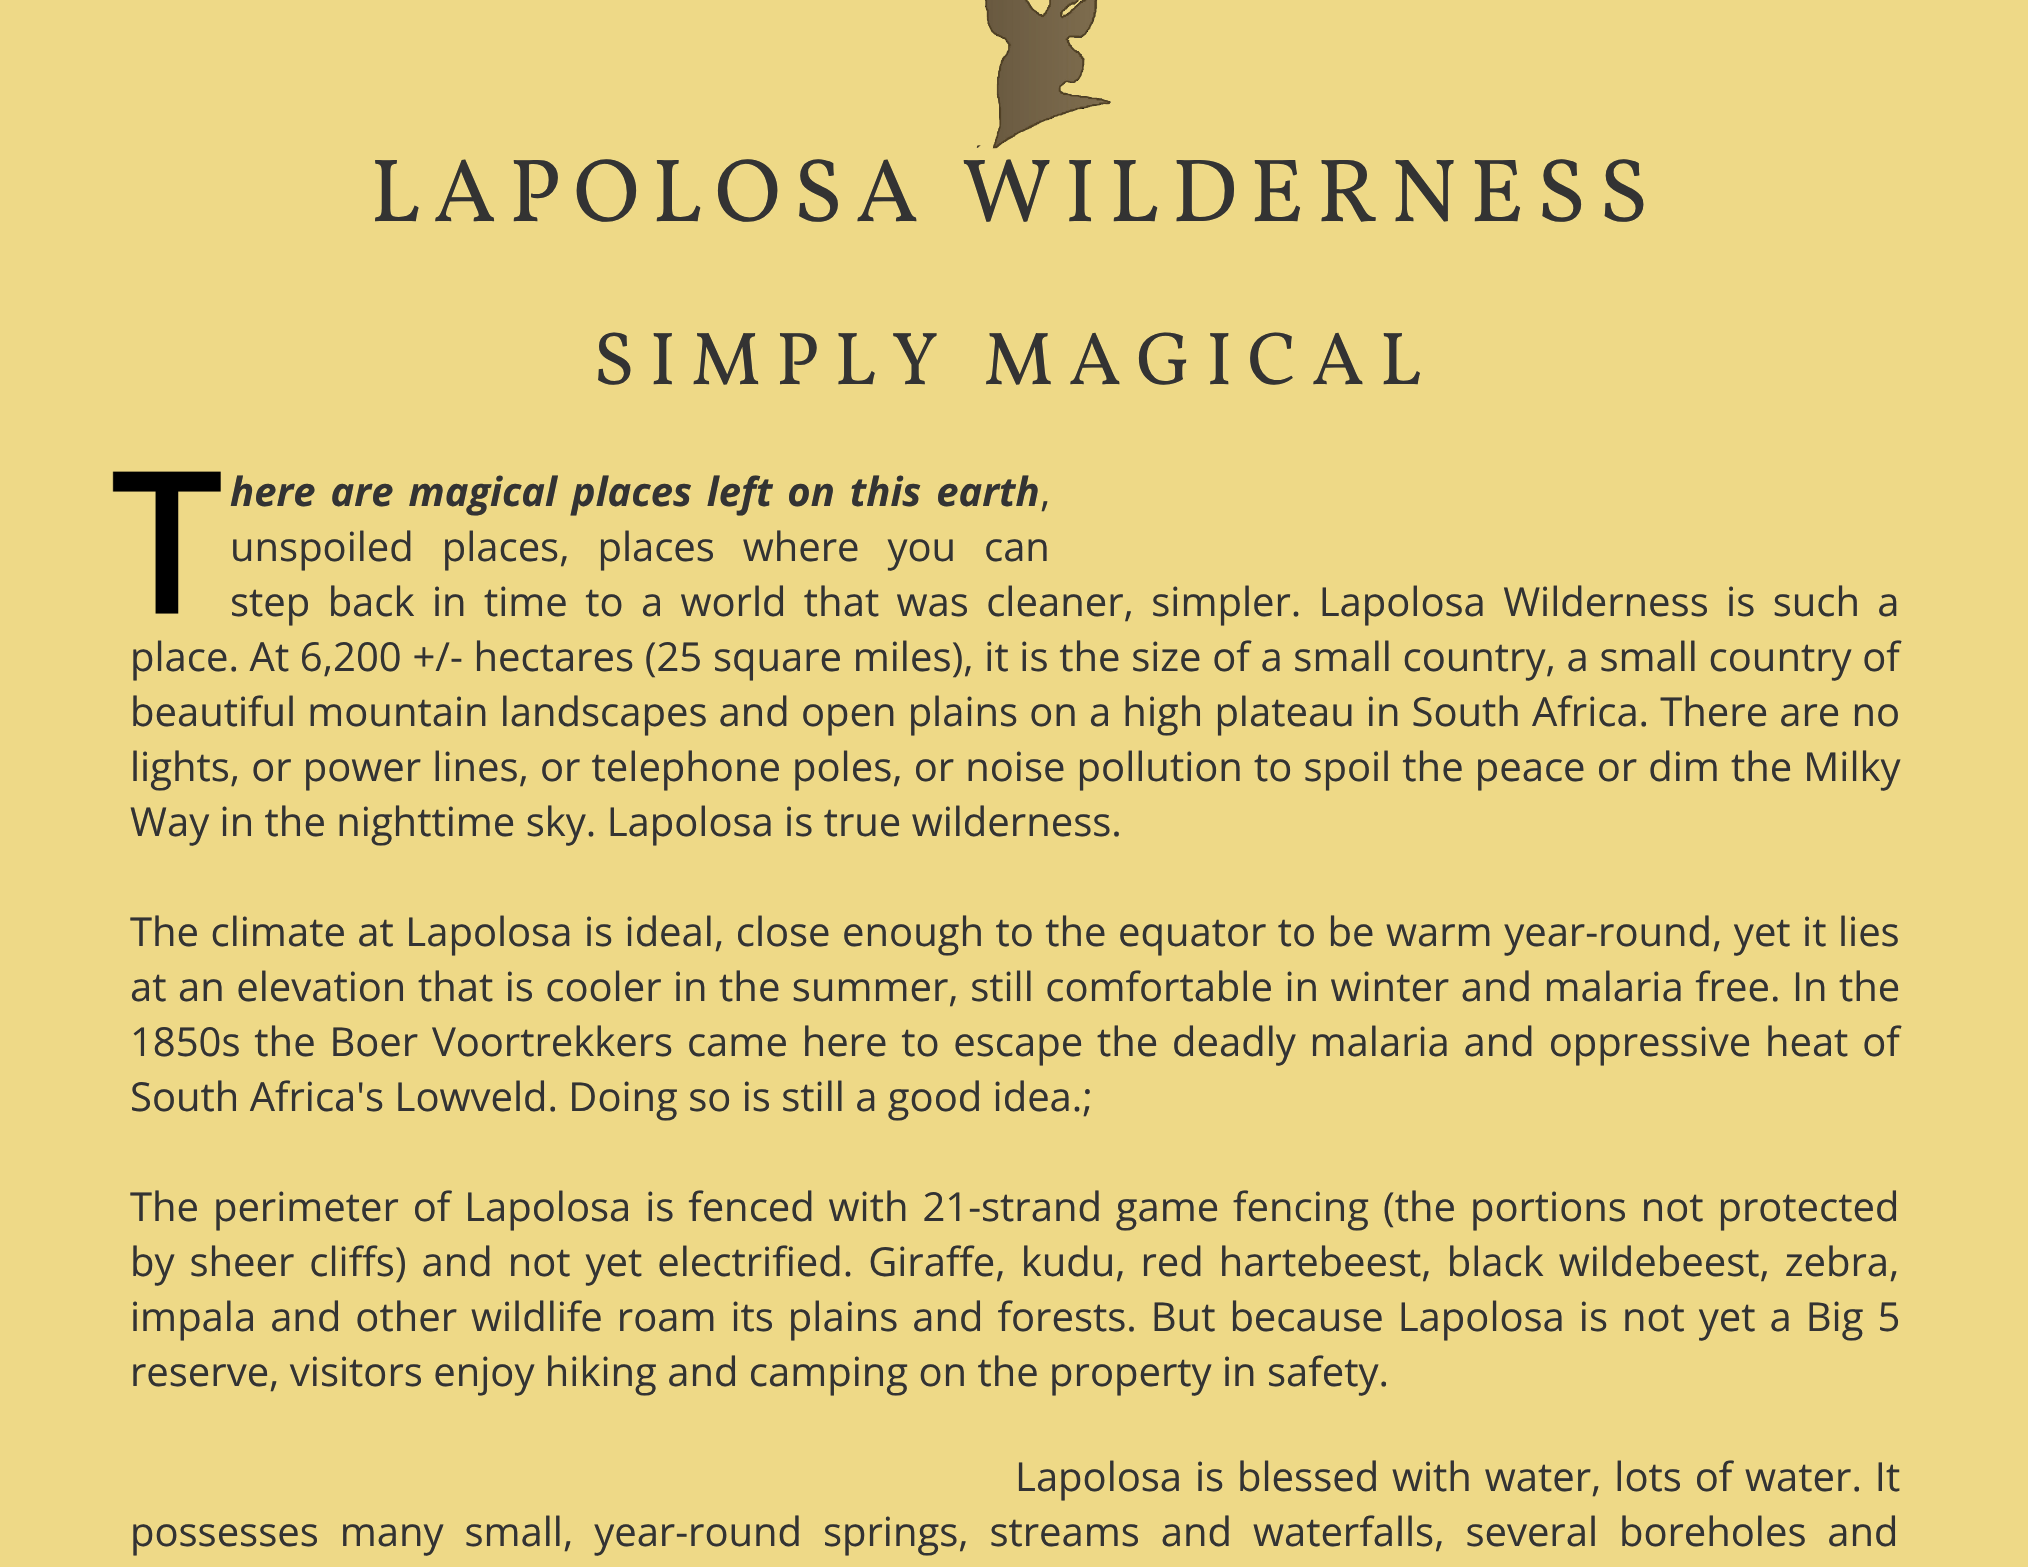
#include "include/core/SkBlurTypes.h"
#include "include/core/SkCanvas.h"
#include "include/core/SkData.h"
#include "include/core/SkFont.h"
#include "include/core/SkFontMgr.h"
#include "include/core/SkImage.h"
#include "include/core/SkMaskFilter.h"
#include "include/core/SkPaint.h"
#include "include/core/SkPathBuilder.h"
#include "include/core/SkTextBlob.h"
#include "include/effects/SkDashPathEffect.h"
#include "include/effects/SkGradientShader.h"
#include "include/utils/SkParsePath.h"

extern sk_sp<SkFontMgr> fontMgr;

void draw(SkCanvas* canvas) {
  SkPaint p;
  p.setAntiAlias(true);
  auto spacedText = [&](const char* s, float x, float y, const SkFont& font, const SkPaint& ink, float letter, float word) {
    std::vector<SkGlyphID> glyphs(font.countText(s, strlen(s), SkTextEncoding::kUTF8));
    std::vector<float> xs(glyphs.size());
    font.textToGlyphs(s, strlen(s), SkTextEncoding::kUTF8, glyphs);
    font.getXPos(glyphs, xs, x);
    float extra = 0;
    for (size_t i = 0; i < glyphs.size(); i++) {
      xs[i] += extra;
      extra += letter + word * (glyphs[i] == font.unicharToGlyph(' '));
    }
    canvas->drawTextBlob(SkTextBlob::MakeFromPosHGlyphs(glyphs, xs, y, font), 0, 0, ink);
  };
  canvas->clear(SkColorSetRGB(238, 217, 135));
  canvas->drawImageRect(SkImages::DeferredFromEncodedData(SkData::MakeFromFileName("images/1.png")), SkRect::MakeLTRB(976, 0, 1111, 149), SkSamplingOptions());
  canvas->drawImageRect(SkImages::DeferredFromEncodedData(SkData::MakeFromFileName("images/2.png")), SkRect::MakeLTRB(112, 471, 221, 614), SkSamplingOptions());
  SkFont font1(fontMgr->matchFamilyStyle("Vollkorn", SkFontStyle::Normal()), 90);
  font1.setSubpixel(true);
  p.setColor(SkColorSetRGB(51, 51, 51));
  spacedText("LAPOLOSA WILDERNESS", 370, 221, font1, p, 12.5f, 0);
  SkFont font2(fontMgr->matchFamilyStyle("Vollkorn", SkFontStyle::Normal()), 75);
  font2.setSubpixel(true);
  spacedText("SIMPLY MAGICAL", 593, 384, font2, p, 15, 0);
  SkFont font3(fontMgr->matchFamilyStyle("Open Sans", SkFontStyle::BoldItalic()), 40);
  font3.setSubpixel(true);
  spacedText("here are magical places left on this earth", 230, 506, font3, p, 0, 4.6f);
  SkFont font4(fontMgr->matchFamilyStyle("Open Sans", SkFontStyle::Normal()), 40);
  font4.setSubpixel(true);
  canvas->drawString(",", 1040, 506, font4, p);
  spacedText("unspoiled places, places where you can", 230, 561, font4, p, 0, 17.5f);
  spacedText("step back in time to a world that was cleaner, simpler. Lapolosa Wilderness is such a", 230, 616, font4, p, 0, 7);
  spacedText("place. At 6,200 +/- hectares (25 square miles), it is the size of a small country, a small country of", 130, 671, font4, p, 0, 0.3f);
  spacedText("beautiful mountain landscapes and open plains on a high plateau in South Africa. There are no", 130, 726, font4, p, 0, 0.75f);
  spacedText("lights, or power lines, or telephone poles, or noise pollution to spoil the peace or dim the Milky", 130, 781, font4, p, 0, 0.75f);
  canvas->drawString("Way in the nighttime sky. Lapolosa is true wilderness.", 130, 836, font4, p);
  spacedText("The climate at Lapolosa is ideal, close enough to the equator to be warm year-round, yet it lies", 130, 946, font4, p, 0, 1.1f);
  spacedText("at an elevation that is cooler in the summer, still comfortable in winter and malaria free. In the", 130, 1001, font4, p, 0, 1.1f);
  spacedText("1850s the Boer Voortrekkers came here to escape the deadly malaria and oppressive heat of", 130, 1056, font4, p, 0, 3.4f);
  canvas->drawString("South Africa's Lowveld. Doing so is still a good idea.;", 130, 1111, font4, p);
  spacedText("The perimeter of Lapolosa is fenced with 21-strand game fencing (the portions not protected", 130, 1221, font4, p, 0, 3.5f);
  spacedText("by sheer cliffs) and not yet electrified. Giraffe, kudu, red hartebeest, black wildebeest, zebra,", 130, 1276, font4, p, 0, 4.6f);
  spacedText("impala and other wildlife roam its plains and forests. But because Lapolosa is not yet a Big 5", 130, 1331, font4, p, 0, 3.6f);
  canvas->drawString("reserve, visitors enjoy hiking and camping on the property in safety.", 130, 1386, font4, p);
  spacedText("Lapolosa is blessed with water, lots of water. It", 1015, 1491, font4, p, 0, 2.5f);
  spacedText("possesses many small, year-round springs, streams and waterfalls, several boreholes and", 130, 1546, font4, p, 0, 10.5f);
}
